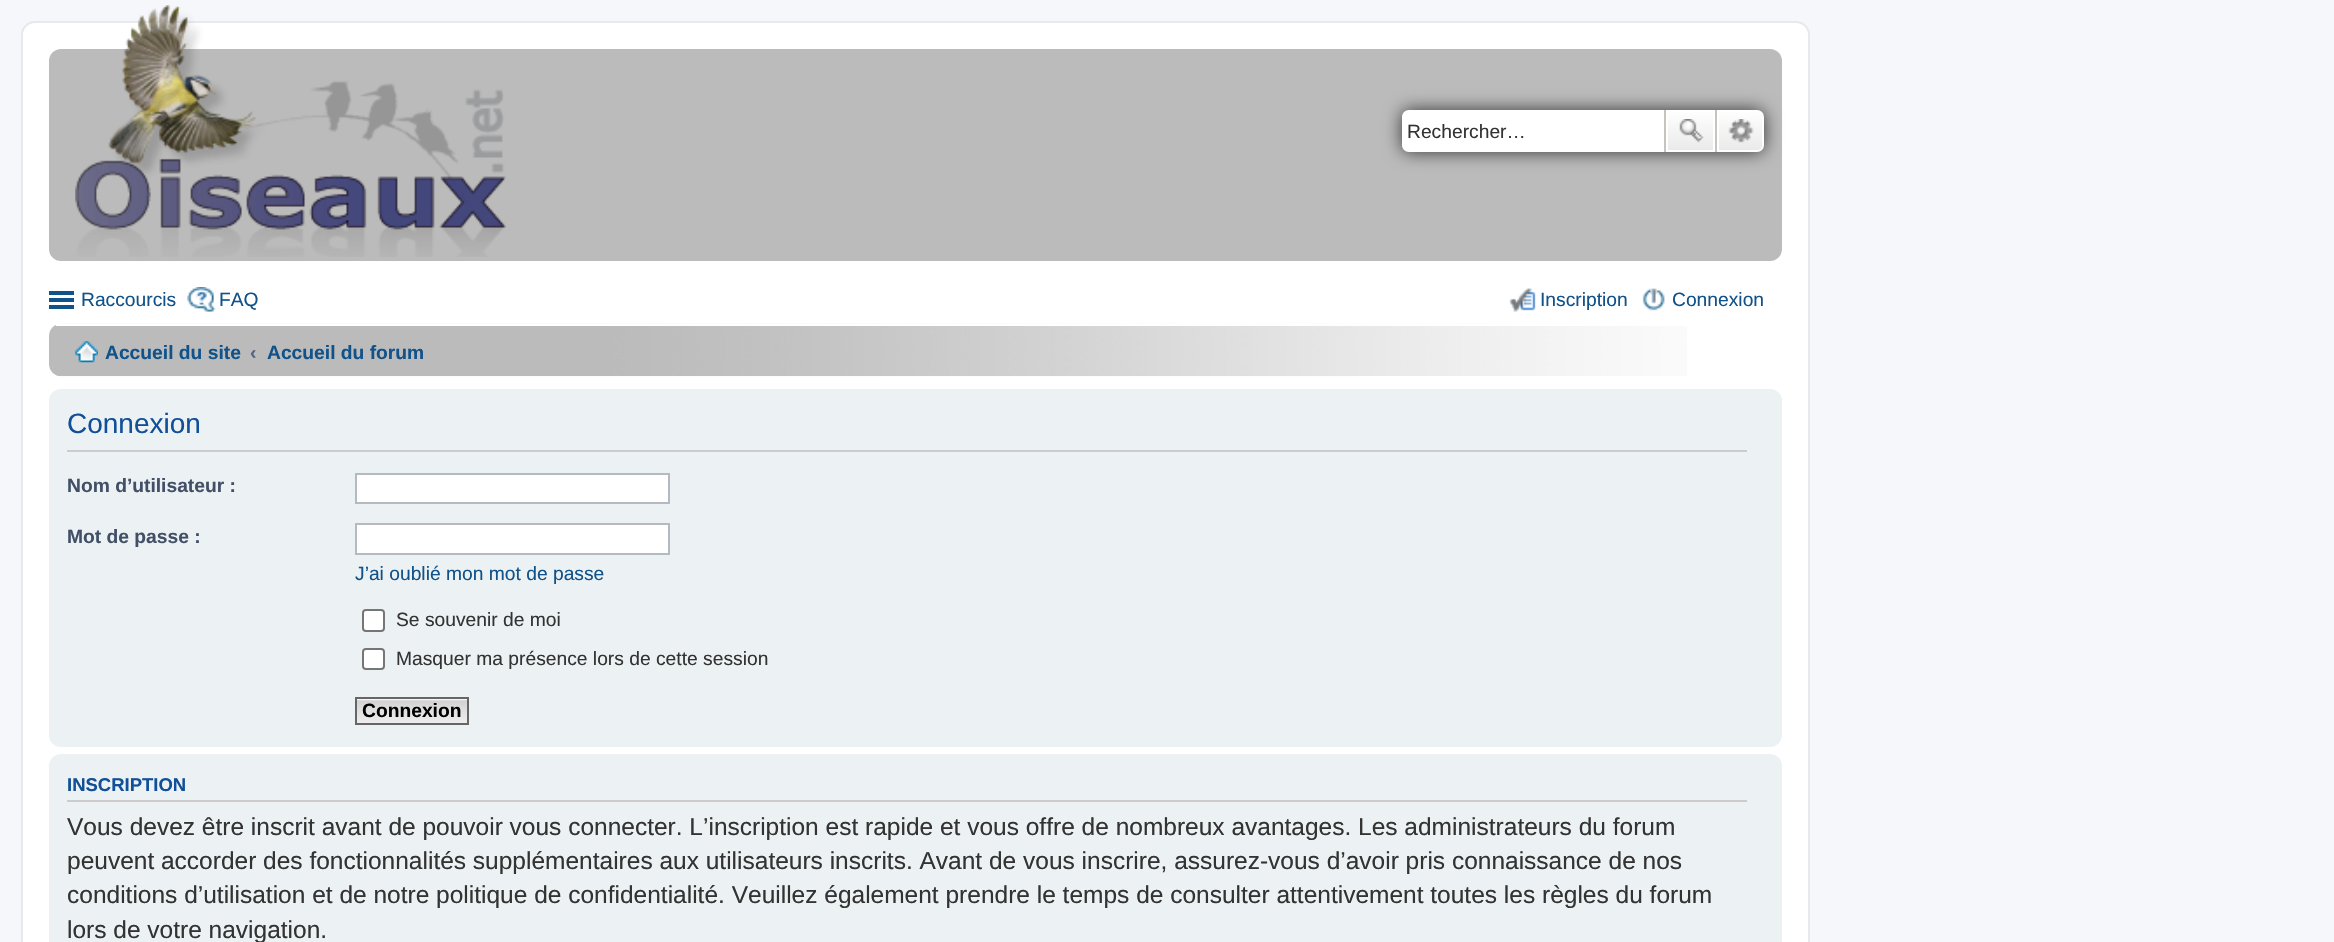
#include "include/core/SkBlurTypes.h"
#include "include/core/SkCanvas.h"
#include "include/core/SkData.h"
#include "include/core/SkFont.h"
#include "include/core/SkFontMgr.h"
#include "include/core/SkImage.h"
#include "include/core/SkMaskFilter.h"
#include "include/core/SkPaint.h"
#include "include/core/SkPathBuilder.h"
#include "include/core/SkTextBlob.h"
#include "include/effects/SkDashPathEffect.h"
#include "include/effects/SkGradientShader.h"
#include "include/utils/SkParsePath.h"

extern sk_sp<SkFontMgr> fontMgr;

void draw(SkCanvas* canvas) {
  SkPaint p;
  p.setAntiAlias(true);
  canvas->clear(SkColorSetRGB(245, 247, 250));
  p.setColor(SK_ColorWHITE);
  canvas->drawRoundRect(SkRect::MakeLTRB(22, 22, 1809, 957), 13, 13, p);
  p.setStyle(SkPaint::kStroke_Style);
  p.setStrokeWidth(2);
  p.setColor(SkColorSetRGB(230, 233, 237));
  canvas->drawRoundRect(SkRect::MakeLTRB(22, 22, 1809, 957), 13, 13, p);
  p.setStyle(SkPaint::kFill_Style);
  p.setColor(SkColorSetRGB(187, 187, 187));
  canvas->drawRoundRect(SkRect::MakeLTRB(49, 49, 1782, 261), 12, 12, p);
  canvas->drawImageRect(SkImages::DeferredFromEncodedData(SkData::MakeFromFileName("images/1.png")), SkRect::MakeLTRB(75, 5, 506, 257), SkSamplingOptions());
  p.setColor(SkColorSetRGB(51, 51, 51));
  p.setMaskFilter(SkMaskFilter::MakeBlur(kNormal_SkBlurStyle, 9));
  canvas->drawRoundRect(SkRect::MakeLTRB(1402, 110, 1764, 152), 7, 7, p);
  p.setMaskFilter(nullptr);
  p.setColor(SK_ColorWHITE);
  canvas->drawPath(SkPathBuilder().moveTo(1409, 110).lineTo(1664, 110).lineTo(1664, 152).lineTo(1409, 152).cubicTo(1405, 152, 1402, 149, 1402, 145).lineTo(1402, 117).cubicTo(1402, 113, 1405, 110, 1409, 110).close().detach(), p);
  {
    const SkColor colors[] = {SK_ColorWHITE, SkColorSetRGB(233, 233, 233)};
    const float stops[] = {0, 1};
    const SkPoint ends[] = {{1691, 110}, {1691, 152}};
    p.setShader(SkGradientShader::MakeLinear(ends, colors, stops, 2, SkTileMode::kClamp));
    p.setAlpha(255);
  }
  canvas->drawRect(SkRect::MakeLTRB(1668, 112, 1713, 150), p);
  p.setStyle(SkPaint::kStroke_Style);
  p.setShader(nullptr);
  p.setColor(SK_ColorWHITE);
  canvas->drawRect(SkRect::MakeLTRB(1667, 111, 1714, 151), p);
  p.setStyle(SkPaint::kFill_Style);
  p.setColor(SkColorSetRGB(199, 195, 191));
  canvas->drawRect(SkRect::MakeLTRB(1715, 110, 1717, 152), p);
  canvas->drawRect(SkRect::MakeLTRB(1664, 110, 1666, 152), p);
  canvas->drawImageRect(SkImages::DeferredFromEncodedData(SkData::MakeFromFileName("images/2.png")), SkRect::MakeLTRB(1679, 119, 1704, 143), SkSamplingOptions());
  {
    const SkColor colors[] = {SK_ColorWHITE, SkColorSetRGB(233, 233, 233)};
    const float stops[] = {0, 1};
    const SkPoint ends[] = {{1740, 110}, {1740, 152}};
    p.setShader(SkGradientShader::MakeLinear(ends, colors, stops, 2, SkTileMode::kClamp));
    p.setAlpha(255);
  }
  canvas->drawPath(SkPathBuilder().moveTo(1718, 111).lineTo(1757, 111).cubicTo(1760.5f, 111, 1763, 113.5f, 1763, 117).lineTo(1763, 145).cubicTo(1763, 148.5f, 1760.5f, 151, 1757, 151).lineTo(1718, 151).close().detach(), p);
  p.setStyle(SkPaint::kStroke_Style);
  p.setShader(nullptr);
  p.setColor(SK_ColorWHITE);
  canvas->drawPath(SkPathBuilder().moveTo(1718, 111).lineTo(1757, 111).cubicTo(1760.5f, 111, 1763, 113.5f, 1763, 117).lineTo(1763, 145).cubicTo(1763, 148.5f, 1760.5f, 151, 1757, 151).lineTo(1718, 151).close().detach(), p);
  canvas->drawImageRect(SkImages::DeferredFromEncodedData(SkData::MakeFromFileName("images/3.png")), SkRect::MakeLTRB(1728, 119, 1754, 143), SkSamplingOptions());
  p.setStyle(SkPaint::kFill_Style);
  p.setColor(SkColorSetRGB(16, 82, 137));
  canvas->drawRect(SkRect::MakeLTRB(49, 291, 74, 295), p);
  canvas->drawRect(SkRect::MakeLTRB(49, 298, 74, 302), p);
  canvas->drawRect(SkRect::MakeLTRB(49, 305, 74, 309), p);
  canvas->drawImageRect(SkImages::DeferredFromEncodedData(SkData::MakeFromFileName("images/4.png")), SkRect::MakeLTRB(187, 287, 216, 312), SkSamplingOptions());
  canvas->drawImageRect(SkImages::DeferredFromEncodedData(SkData::MakeFromFileName("images/5.png")), SkRect::MakeLTRB(1509, 288, 1536, 312), SkSamplingOptions());
  canvas->drawImageRect(SkImages::DeferredFromEncodedData(SkData::MakeFromFileName("images/6.png")), SkRect::MakeLTRB(1642, 288, 1665, 311), SkSamplingOptions());
  canvas->drawImageRect(SkImages::DeferredFromEncodedData(SkData::MakeFromFileName("images/7.png")), SkRect::MakeLTRB(49, 323, 1687, 377), SkSamplingOptions());
  p.setColor(SK_ColorWHITE);
  canvas->drawRect(SkRect::MakeLTRB(56, 324, 1687, 326), p);
  canvas->drawImageRect(SkImages::DeferredFromEncodedData(SkData::MakeFromFileName("images/8.png")), SkRect::MakeLTRB(75, 341, 98, 363), SkSamplingOptions());
  p.setColor(SkColorSetRGB(236, 241, 243));
  canvas->drawRoundRect(SkRect::MakeLTRB(49, 389, 1782, 747), 12, 12, p);
  p.setColor(SkColorSetRGB(204, 204, 204));
  canvas->drawRect(SkRect::MakeLTRB(67, 450, 1747, 452), p);
  p.setColor(SK_ColorWHITE);
  canvas->drawRect(SkRect::MakeLTRB(356, 474, 669, 503), p);
  p.setStyle(SkPaint::kStroke_Style);
  p.setColor(SkColorSetRGB(180, 186, 192));
  canvas->drawRect(SkRect::MakeLTRB(356, 474, 669, 503), p);
  p.setStyle(SkPaint::kFill_Style);
  p.setColor(SK_ColorWHITE);
  canvas->drawRect(SkRect::MakeLTRB(356, 524, 669, 554), p);
  p.setStyle(SkPaint::kStroke_Style);
  p.setColor(SkColorSetRGB(180, 186, 192));
  canvas->drawRect(SkRect::MakeLTRB(356, 524, 669, 554), p);
  p.setStyle(SkPaint::kFill_Style);
  p.setColor(SK_ColorWHITE);
  canvas->drawRoundRect(SkRect::MakeLTRB(363, 610, 384, 631), 3, 3, p);
  p.setStyle(SkPaint::kStroke_Style);
  p.setColor(SkColorSetRGB(118, 118, 118));
  canvas->drawRoundRect(SkRect::MakeLTRB(363, 610, 384, 631), 3, 3, p);
  p.setStyle(SkPaint::kFill_Style);
  p.setColor(SK_ColorWHITE);
  canvas->drawRoundRect(SkRect::MakeLTRB(363, 649, 384, 669), 3, 3, p);
  p.setStyle(SkPaint::kStroke_Style);
  p.setColor(SkColorSetRGB(118, 118, 118));
  canvas->drawRoundRect(SkRect::MakeLTRB(363, 649, 384, 669), 3, 3, p);
  canvas->drawImageRect(SkImages::DeferredFromEncodedData(SkData::MakeFromFileName("images/9.png")), SkRect::MakeLTRB(357, 699, 467, 723), SkSamplingOptions());
  p.setColor(SkColorSetRGB(102, 102, 102));
  canvas->drawRect(SkRect::MakeLTRB(356, 698, 468, 724), p);
  p.setStyle(SkPaint::kFill_Style);
  p.setColor(SkColorSetRGB(236, 241, 243));
  canvas->drawRoundRect(SkRect::MakeLTRB(49, 754, 1782, 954), 12, 12, p);
  p.setColor(SkColorSetRGB(204, 204, 204));
  canvas->drawRect(SkRect::MakeLTRB(67, 800, 1747, 802), p);
  SkFont font1(fontMgr->matchFamilyStyle("Liberation Sans", SkFontStyle::Normal()), 19.25f);
  font1.setSubpixel(true);
  p.setColor(SkColorSetRGB(51, 51, 51));
  canvas->drawString("Rechercher…", 1407, 138, font1, p);
  p.setColor(SkColorSetRGB(16, 82, 137));
  canvas->drawString("Raccourcis", 81, 306, font1, p);
  canvas->drawString("FAQ", 219, 306, font1, p);
  canvas->drawString("Inscription", 1540, 306, font1, p);
  canvas->drawString("Connexion", 1672, 306, font1, p);
  SkFont font2(fontMgr->matchFamilyStyle("Liberation Sans", SkFontStyle::Bold()), 19.25f);
  font2.setSubpixel(true);
  canvas->drawString("Accueil du site", 105, 359, font2, p);
  p.setColor(SkColorSetRGB(83, 100, 130));
  canvas->drawString("‹", 250, 359, font2, p);
  p.setColor(SkColorSetRGB(16, 82, 137));
  canvas->drawString("Accueil du forum", 267, 359, font2, p);
  SkFont font3(fontMgr->matchFamilyStyle("Liberation Sans", SkFontStyle::Normal()), 28);
  font3.setSubpixel(true);
  p.setColor(SkColorSetRGB(17, 80, 152));
  canvas->drawString("Connexion", 67, 433, font3, p);
  p.setColor(SkColorSetRGB(66, 80, 103));
  canvas->drawString("Nom d’utilisateur :", 67, 492, font2, p);
  canvas->drawString("Mot de passe :", 67, 543, font2, p);
  p.setColor(SkColorSetRGB(16, 82, 137));
  canvas->drawString("J’ai oublié mon mot de passe", 355, 580, font1, p);
  p.setColor(SkColorSetRGB(51, 51, 51));
  canvas->drawString("Se souvenir de moi", 396, 626, font1, p);
  canvas->drawString("Masquer ma présence lors de cette session", 396, 665, font1, p);
  p.setColor(SK_ColorBLACK);
  canvas->drawString("Connexion", 362, 717, font2, p);
  SkFont font4(fontMgr->matchFamilyStyle("Liberation Sans", SkFontStyle::Bold()), 18.5f);
  font4.setSubpixel(true);
  p.setColor(SkColorSetRGB(17, 80, 152));
  canvas->drawString("INSCRIPTION", 67, 791, font4, p);
  SkFont font5(fontMgr->matchFamilyStyle("Liberation Sans", SkFontStyle::Normal()), 24.5f);
  font5.setSubpixel(true);
  p.setColor(SkColorSetRGB(51, 51, 51));
  canvas->drawString("Vous devez être inscrit avant de pouvoir vous connecter. L’inscription est rapide et vous offre de nombreux avantages. Les administrateurs du forum", 67, 835, font5, p);
  canvas->drawString("peuvent accorder des fonctionnalités supplémentaires aux utilisateurs inscrits. Avant de vous inscrire, assurez-vous d’avoir pris connaissance de nos", 67, 869, font5, p);
  canvas->drawString("conditions d’utilisation et de notre politique de confidentialité. Veuillez également prendre le temps de consulter attentivement toutes les règles du forum", 67, 903, font5, p);
  canvas->drawString("lors de votre navigation.", 67, 938, font5, p);
}
